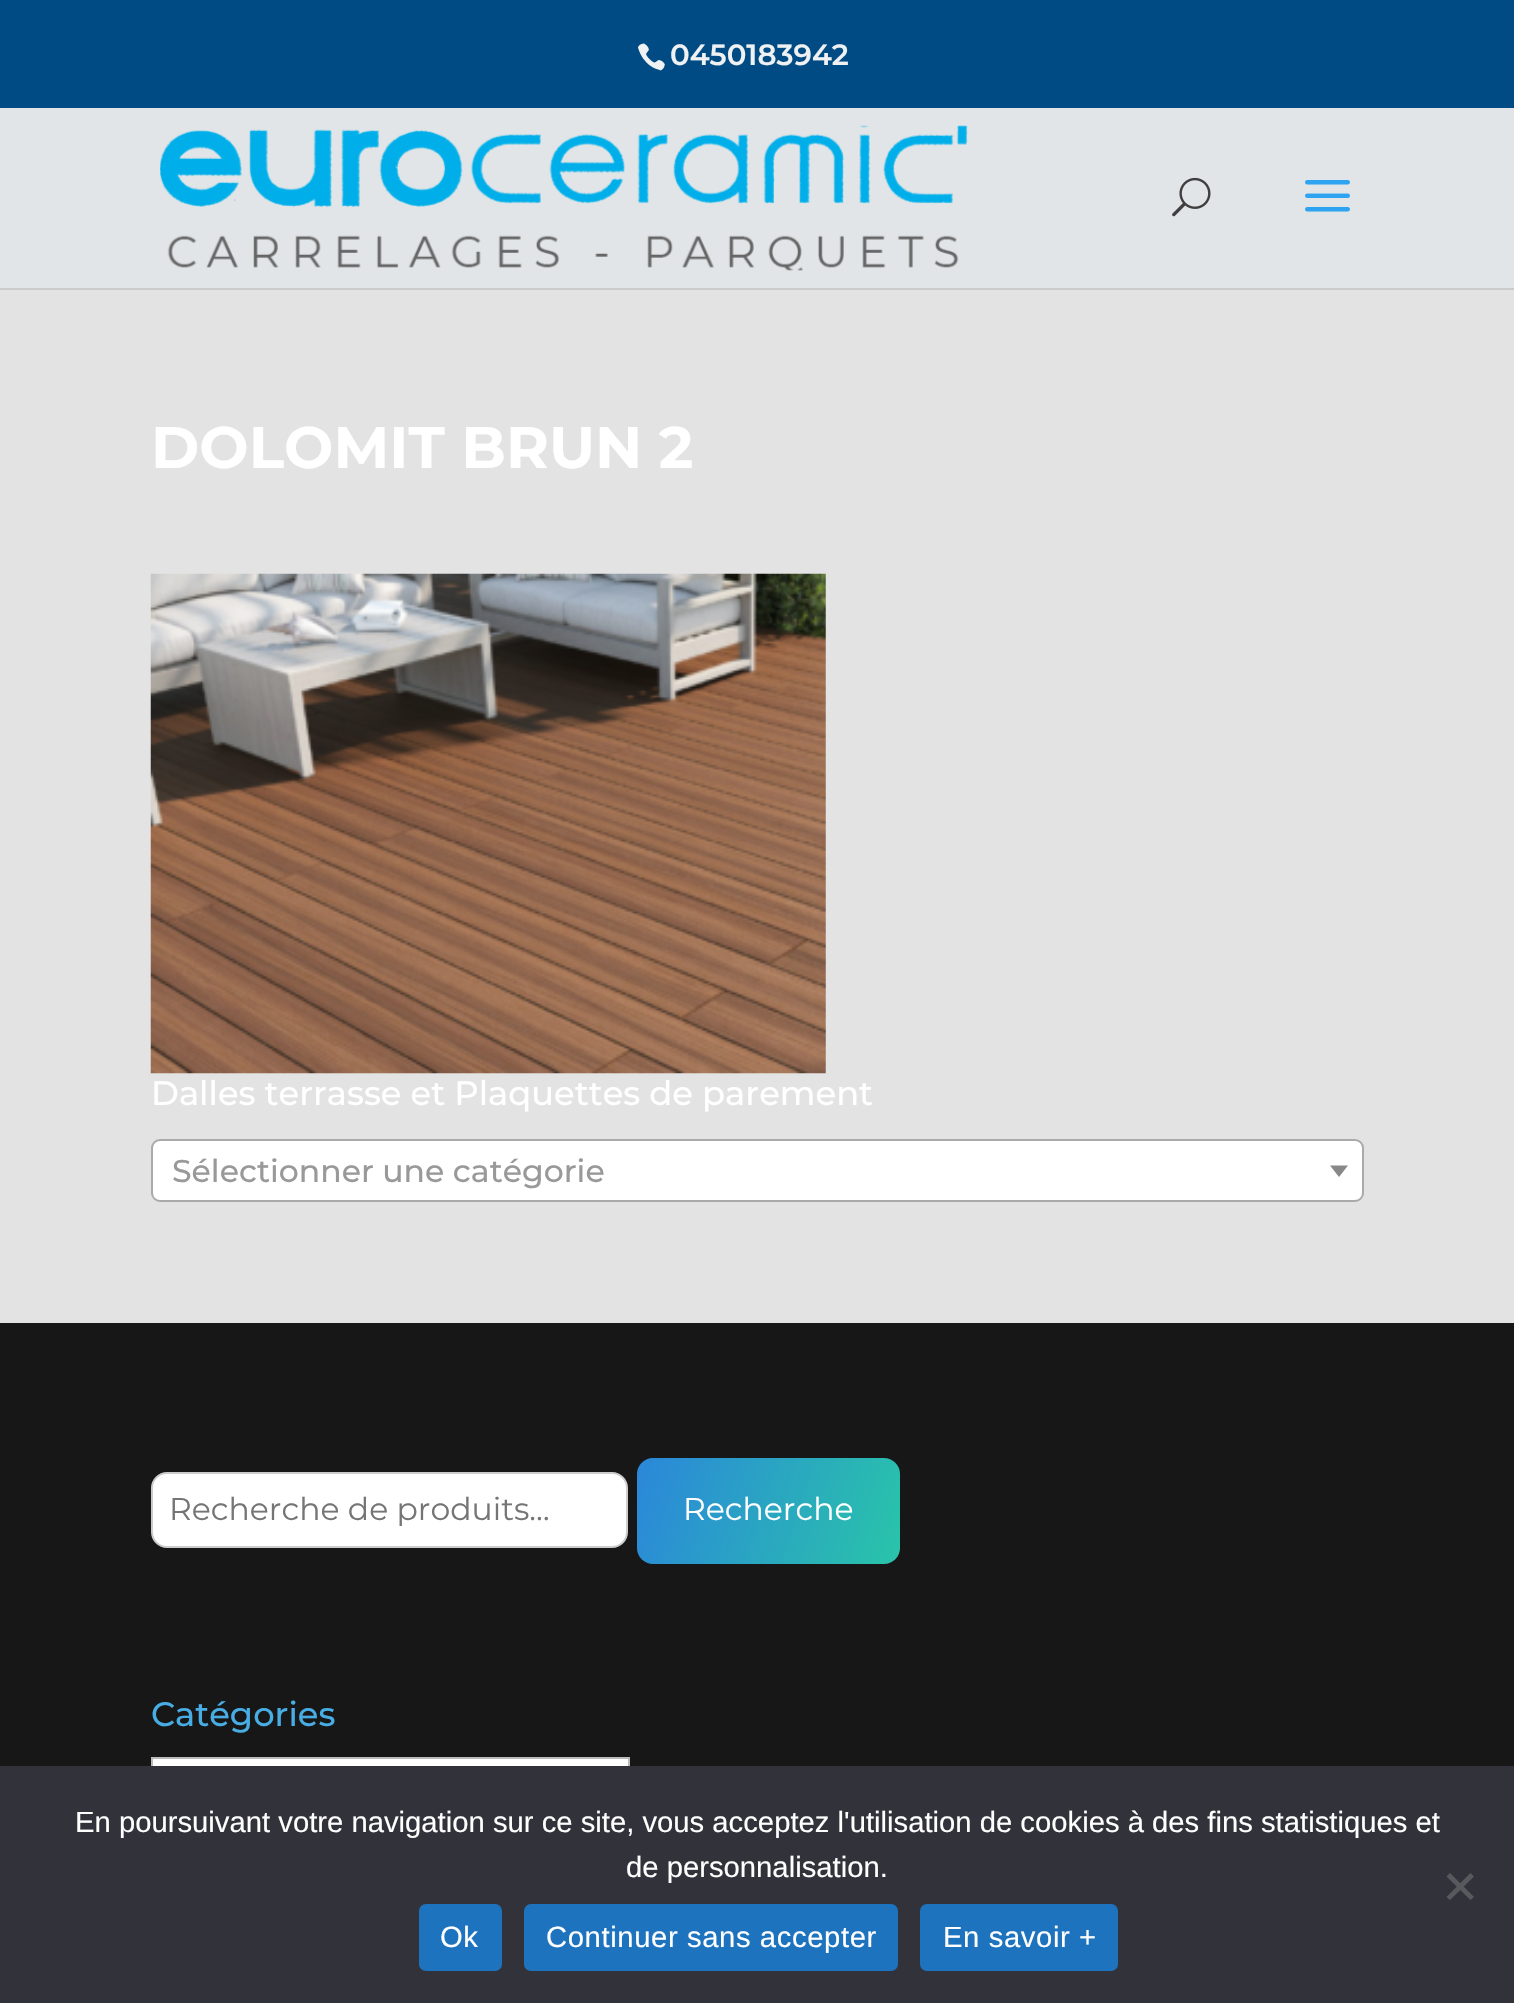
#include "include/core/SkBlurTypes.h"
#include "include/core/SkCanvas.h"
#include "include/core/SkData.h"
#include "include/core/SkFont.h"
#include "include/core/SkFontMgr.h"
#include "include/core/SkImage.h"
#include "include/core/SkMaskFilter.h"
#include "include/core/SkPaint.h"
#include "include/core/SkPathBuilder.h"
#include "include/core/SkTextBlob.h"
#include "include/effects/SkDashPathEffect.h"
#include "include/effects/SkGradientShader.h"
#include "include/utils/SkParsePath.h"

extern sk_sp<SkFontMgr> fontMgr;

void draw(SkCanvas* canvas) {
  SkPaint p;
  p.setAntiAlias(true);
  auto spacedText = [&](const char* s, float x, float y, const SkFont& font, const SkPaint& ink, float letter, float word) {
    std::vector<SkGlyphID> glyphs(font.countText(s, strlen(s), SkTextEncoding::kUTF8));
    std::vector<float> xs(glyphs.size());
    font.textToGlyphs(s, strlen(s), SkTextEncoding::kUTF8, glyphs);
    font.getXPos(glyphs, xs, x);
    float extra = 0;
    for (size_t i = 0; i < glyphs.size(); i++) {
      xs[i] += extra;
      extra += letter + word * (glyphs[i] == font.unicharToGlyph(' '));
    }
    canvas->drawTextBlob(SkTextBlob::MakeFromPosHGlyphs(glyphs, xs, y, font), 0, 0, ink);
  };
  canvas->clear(SkColorSetRGB(227, 227, 227));
  p.setColor(SkColorSetRGB(0, 75, 132));
  canvas->drawRect(SkRect::MakeLTRB(0, 0, 1514, 108), p);
  canvas->drawImageRect(SkImages::DeferredFromEncodedData(SkData::MakeFromFileName("images/1.png")), SkRect::MakeLTRB(638, 43, 665, 71), SkSamplingOptions());
  p.setColor(SkColorSetRGB(204, 204, 204));
  canvas->drawRect(SkRect::MakeLTRB(0, 288, 1514, 290), p);
  p.setColor(SkColorSetRGB(226, 229, 231));
  canvas->drawRect(SkRect::MakeLTRB(0, 108, 1514, 288), p);
  canvas->drawImageRect(SkImages::DeferredFromEncodedData(SkData::MakeFromFileName("images/2.png")), SkRect::MakeLTRB(160, 125, 968, 271), SkSamplingOptions());
  canvas->drawImageRect(SkImages::DeferredFromEncodedData(SkData::MakeFromFileName("images/3.png")), SkRect::MakeLTRB(1172, 177, 1211, 217), SkSamplingOptions());
  canvas->drawImageRect(SkImages::DeferredFromEncodedData(SkData::MakeFromFileName("images/4.png")), SkRect::MakeLTRB(1305, 180, 1350, 212), SkSamplingOptions());
  canvas->drawImageRect(SkImages::DeferredFromEncodedData(SkData::MakeFromFileName("images/5.png")), SkRect::MakeLTRB(150, 573, 826, 1074), SkSamplingOptions());
  p.setColor(SK_ColorWHITE);
  canvas->drawRoundRect(SkRect::MakeLTRB(152, 1140, 1363, 1201), 8, 8, p);
  p.setStyle(SkPaint::kStroke_Style);
  p.setStrokeWidth(2);
  p.setColor(SkColorSetRGB(170, 170, 170));
  canvas->drawRoundRect(SkRect::MakeLTRB(152, 1140, 1363, 1201), 8, 8, p);
  p.setStyle(SkPaint::kFill_Style);
  p.setColor(SkColorSetRGB(136, 136, 136));
  canvas->drawPath(SkPathBuilder().moveTo(1330, 1165.5f).lineTo(1348, 1165.5f).lineTo(1339, 1177).close().detach(), p);
  p.setColor(SkColorSetRGB(23, 23, 23));
  canvas->drawRect(SkRect::MakeLTRB(0, 1323, 1514, 1766), p);
  p.setColor(SK_ColorWHITE);
  canvas->drawRoundRect(SkRect::MakeLTRB(152, 1473, 627, 1547), 15, 15, p);
  p.setStyle(SkPaint::kStroke_Style);
  p.setColor(SkColorSetRGB(204, 204, 204));
  canvas->drawRoundRect(SkRect::MakeLTRB(152, 1473, 627, 1547), 15, 15, p);
  p.setStyle(SkPaint::kFill_Style);
  {
    const SkColor colors[] = {SkColorSetRGB(43, 135, 218), SkColorSetRGB(41, 196, 169)};
    const float stops[] = {0, 1};
    const SkPoint ends[] = {{634, 1467}, {903, 1555}};
    p.setShader(SkGradientShader::MakeLinear(ends, colors, stops, 2, SkTileMode::kClamp));
    p.setAlpha(255);
  }
  canvas->drawRoundRect(SkRect::MakeLTRB(637, 1458, 900, 1564), 16, 16, p);
  p.setShader(nullptr);
  p.setColor(SK_ColorWHITE);
  canvas->drawRect(SkRect::MakeLTRB(153, 1759, 628, 1766), p);
  p.setStyle(SkPaint::kStroke_Style);
  p.setColor(SkColorSetRGB(187, 187, 187));
  canvas->drawRect(SkRect::MakeLTRB(152, 1758, 629, 1819), p);
  p.setStyle(SkPaint::kFill_Style);
  p.setColor(SkColorSetRGB(50, 50, 58));
  canvas->drawRect(SkRect::MakeLTRB(0, 1766, 1514, 2003), p);
  p.setColor(SkColorSetRGB(89, 89, 93));
  canvas->drawPath(SkPathBuilder().moveTo(1470.5f, 1873).lineTo(1474, 1876.5f).lineTo(1450, 1900).lineTo(1446.5f, 1897).close().detach(), p);
  canvas->drawPath(SkPathBuilder().moveTo(1446.5f, 1876.5f).lineTo(1450, 1873).lineTo(1474, 1897).lineTo(1470.5f, 1900).close().detach(), p);
  p.setColor(SkColorSetRGB(30, 115, 190));
  canvas->drawRoundRect(SkRect::MakeLTRB(419, 1904, 502, 1971), 7, 7, p);
  canvas->drawRoundRect(SkRect::MakeLTRB(524, 1904, 898, 1971), 7, 7, p);
  canvas->drawRoundRect(SkRect::MakeLTRB(920, 1904, 1118, 1971), 7, 7, p);
  SkFont font1(fontMgr->matchFamilyStyle("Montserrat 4", SkFontStyle(100, SkFontStyle::kNormal_Width, SkFontStyle::kUpright_Slant)), 29.25f);
  font1.setSubpixel(true);
  p.setColor(SkColorSetRGB(239, 241, 243));
  canvas->drawString("0450183942", 670, 65, font1, p);
  SkFont font2(fontMgr->matchFamilyStyle("Montserrat", SkFontStyle(100, SkFontStyle::kNormal_Width, SkFontStyle::kUpright_Slant)), 58.5f);
  font2.setSubpixel(true);
  p.setColor(SK_ColorWHITE);
  canvas->drawString("DOLOMIT BRUN 2", 151, 468, font2, p);
  SkFont font3(fontMgr->matchFamilyStyle("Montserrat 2", SkFontStyle(100, SkFontStyle::kNormal_Width, SkFontStyle::kUpright_Slant)), 33.75f);
  font3.setSubpixel(true);
  canvas->drawString("Dalles terrasse et Plaquettes de parement", 151, 1105, font3, p);
  SkFont font4(fontMgr->matchFamilyStyle("Montserrat 2", SkFontStyle(100, SkFontStyle::kNormal_Width, SkFontStyle::kUpright_Slant)), 31.5f);
  font4.setSubpixel(true);
  p.setColor(SkColorSetRGB(153, 153, 153));
  canvas->drawString("Sélectionner une catégorie", 172, 1182, font4, p);
  SkFont font5(fontMgr->matchFamilyStyle("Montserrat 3", SkFontStyle(100, SkFontStyle::kNormal_Width, SkFontStyle::kUpright_Slant)), 31.5f);
  font5.setSubpixel(true);
  p.setColor(SkColorSetRGB(117, 117, 117));
  canvas->drawString("Recherche de produits…", 169, 1520, font5, p);
  p.setColor(SK_ColorWHITE);
  canvas->drawString("Recherche", 683, 1520, font5, p);
  p.setColor(SkColorSetRGB(71, 173, 228));
  canvas->drawString("Catégories", 151, 1726, font3, p);
  SkFont font6(fontMgr->matchFamilyStyle("Liberation Sans", SkFontStyle::Normal()), 29.25f);
  font6.setSubpixel(true);
  p.setColor(SK_ColorWHITE);
  canvas->drawString("En poursuivant votre navigation sur ce site, vous acceptez l'utilisation de cookies à des fins statistiques et", 75, 1832, font6, p);
  canvas->drawString("de personnalisation.", 626, 1877, font6, p);
  spacedText("Ok", 440, 1947, font6, p, 0.6f, 0);
  spacedText("Continuer sans accepter", 546, 1947, font6, p, 0.6f, 0);
  spacedText("En savoir +", 943, 1947, font6, p, 0.6f, 0);
}
